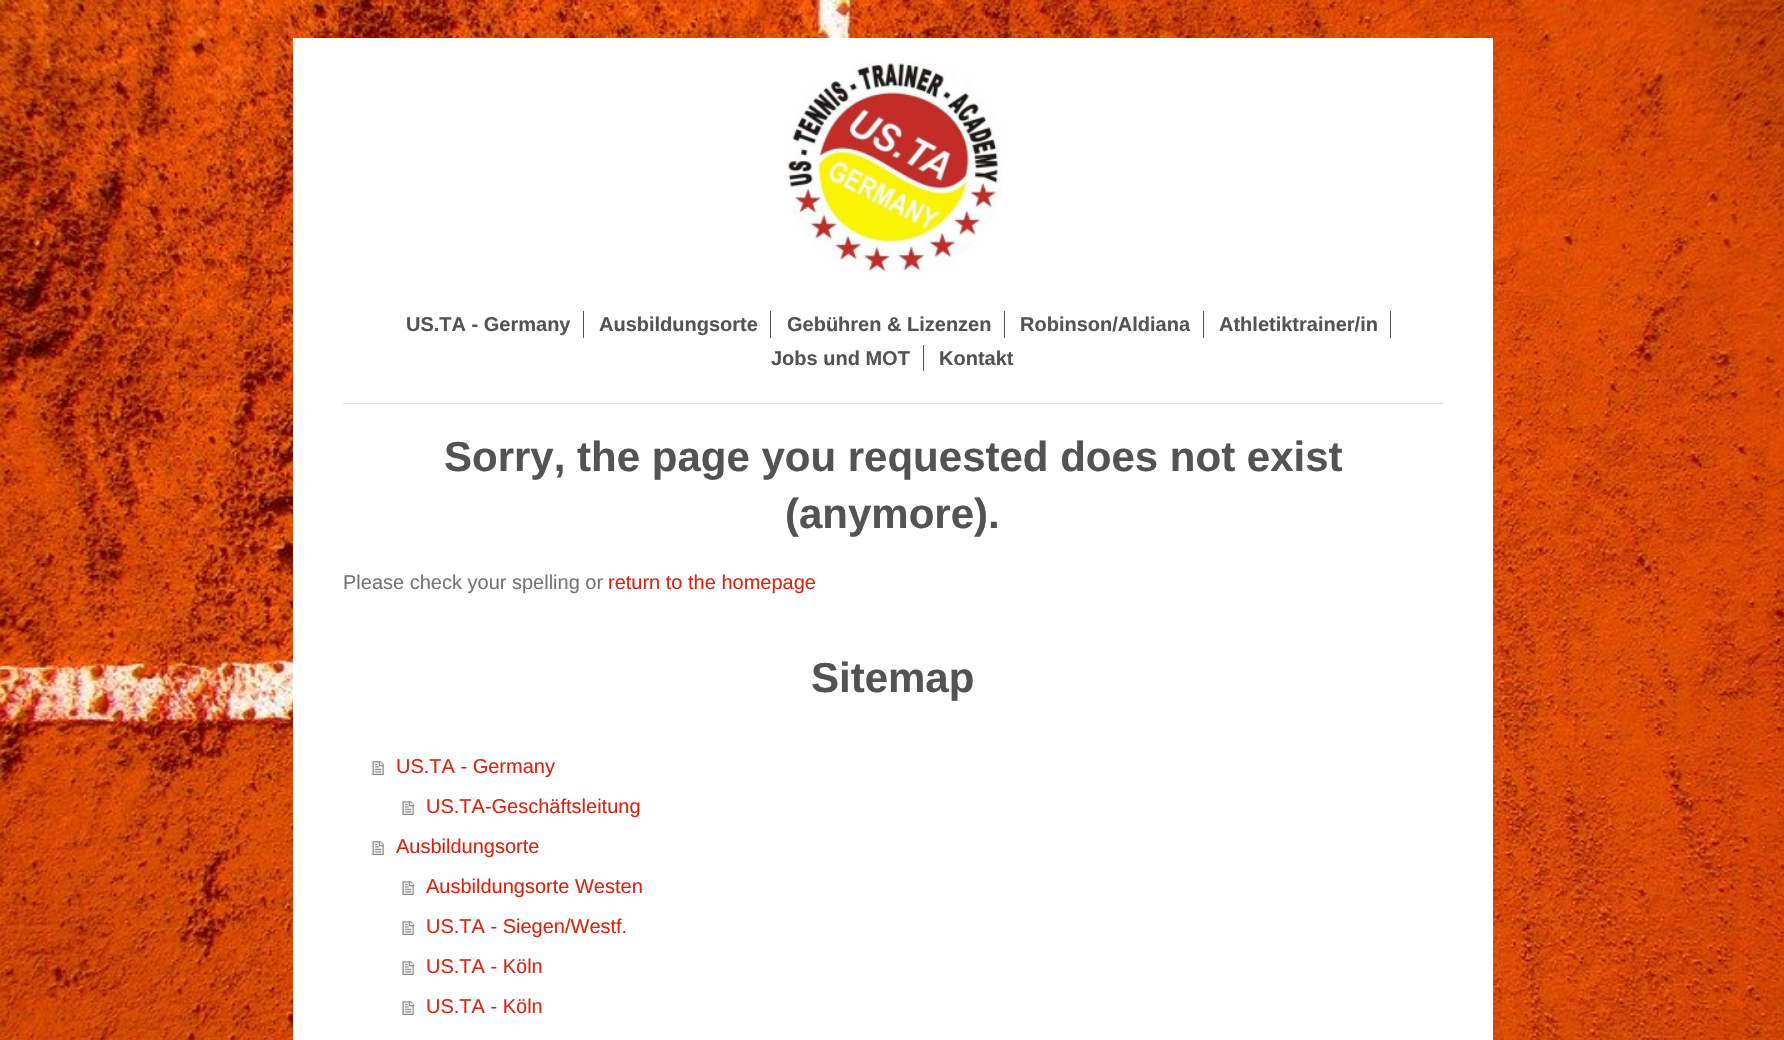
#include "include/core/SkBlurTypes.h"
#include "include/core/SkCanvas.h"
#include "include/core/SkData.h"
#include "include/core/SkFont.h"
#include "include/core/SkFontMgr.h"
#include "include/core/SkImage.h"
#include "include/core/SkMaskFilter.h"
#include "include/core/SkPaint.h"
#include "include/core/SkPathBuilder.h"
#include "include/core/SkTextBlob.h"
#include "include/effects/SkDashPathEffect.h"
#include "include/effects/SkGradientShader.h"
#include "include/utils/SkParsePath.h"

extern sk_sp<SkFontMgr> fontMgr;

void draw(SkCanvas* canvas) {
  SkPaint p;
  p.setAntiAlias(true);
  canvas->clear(SK_ColorWHITE);
  canvas->drawImageRect(SkImages::DeferredFromEncodedData(SkData::MakeFromFileName("images/1.png")), SkRect::MakeLTRB(0, 0, 1784, 1040), SkSamplingOptions());
  p.setColor(SK_ColorWHITE);
  canvas->drawRect(SkRect::MakeLTRB(293, 38, 1493, 1040), p);
  canvas->drawImageRect(SkImages::DeferredFromEncodedData(SkData::MakeFromFileName("images/2.png")), SkRect::MakeLTRB(785, 62, 1002, 273), SkSamplingOptions());
  p.setColor(SkColorSetRGB(221, 221, 221));
  canvas->drawRect(SkRect::MakeLTRB(343, 403, 1443, 404), p);
  p.setColor(SkColorSetRGB(83, 83, 83));
  canvas->drawRect(SkRect::MakeLTRB(583, 311, 584, 338), p);
  canvas->drawRect(SkRect::MakeLTRB(770, 311, 771, 338), p);
  canvas->drawRect(SkRect::MakeLTRB(1004, 311, 1005, 338), p);
  canvas->drawRect(SkRect::MakeLTRB(1203, 311, 1204, 338), p);
  canvas->drawRect(SkRect::MakeLTRB(1390, 311, 1391, 338), p);
  canvas->drawRect(SkRect::MakeLTRB(923, 345, 924, 371), p);
  canvas->drawImageRect(SkImages::DeferredFromEncodedData(SkData::MakeFromFileName("images/3.png")), SkRect::MakeLTRB(372, 761, 384, 775), SkSamplingOptions());
  canvas->drawImageRect(SkImages::DeferredFromEncodedData(SkData::MakeFromFileName("images/3.png")), SkRect::MakeLTRB(402, 801, 414, 815), SkSamplingOptions());
  canvas->drawImageRect(SkImages::DeferredFromEncodedData(SkData::MakeFromFileName("images/3.png")), SkRect::MakeLTRB(372, 841, 384, 855), SkSamplingOptions());
  canvas->drawImageRect(SkImages::DeferredFromEncodedData(SkData::MakeFromFileName("images/3.png")), SkRect::MakeLTRB(402, 881, 414, 895), SkSamplingOptions());
  canvas->drawImageRect(SkImages::DeferredFromEncodedData(SkData::MakeFromFileName("images/3.png")), SkRect::MakeLTRB(402, 921, 414, 935), SkSamplingOptions());
  canvas->drawImageRect(SkImages::DeferredFromEncodedData(SkData::MakeFromFileName("images/3.png")), SkRect::MakeLTRB(402, 961, 414, 975), SkSamplingOptions());
  canvas->drawImageRect(SkImages::DeferredFromEncodedData(SkData::MakeFromFileName("images/3.png")), SkRect::MakeLTRB(402, 1001, 414, 1015), SkSamplingOptions());
  SkFont font1(fontMgr->matchFamilyStyle("Liberation Sans", SkFontStyle::Bold()), 20);
  font1.setSubpixel(true);
  canvas->drawString("US.TA - Germany", 406, 331, font1, p);
  canvas->drawString("Ausbildungsorte", 599, 331, font1, p);
  canvas->drawString("Gebühren & Lizenzen", 787, 331, font1, p);
  canvas->drawString("Robinson/Aldiana", 1020, 331, font1, p);
  canvas->drawString("Athletiktrainer/in", 1219, 331, font1, p);
  canvas->drawString("Jobs und MOT", 771, 365, font1, p);
  canvas->drawString("Kontakt", 939, 365, font1, p);
  SkFont font2(fontMgr->matchFamilyStyle("Liberation Sans", SkFontStyle::Bold()), 42);
  font2.setSubpixel(true);
  canvas->drawString("Sorry, the page you requested does not exist", 444, 471, font2, p);
  canvas->drawString("(anymore).", 785, 528, font2, p);
  SkFont font3(fontMgr->matchFamilyStyle("Liberation Sans", SkFontStyle::Normal()), 20);
  font3.setSubpixel(true);
  p.setColor(SkColorSetRGB(117, 117, 117));
  canvas->drawString("Please check your spelling or", 343, 589, font3, p);
  p.setColor(SkColorSetRGB(214, 38, 18));
  canvas->drawString("return to the homepage", 608, 589, font3, p);
  p.setColor(SkColorSetRGB(83, 83, 83));
  canvas->drawString("Sitemap", 811, 692, font2, p);
  p.setColor(SkColorSetRGB(214, 38, 18));
  canvas->drawString("US.TA - Germany", 396, 773, font3, p);
  canvas->drawString("US.TA-Geschäftsleitung", 426, 813, font3, p);
  canvas->drawString("Ausbildungsorte", 396, 853, font3, p);
  canvas->drawString("Ausbildungsorte Westen", 426, 893, font3, p);
  canvas->drawString("US.TA - Siegen/Westf.", 426, 933, font3, p);
  canvas->drawString("US.TA - Köln", 426, 973, font3, p);
  canvas->drawString("US.TA - Köln", 426, 1013, font3, p);
}
